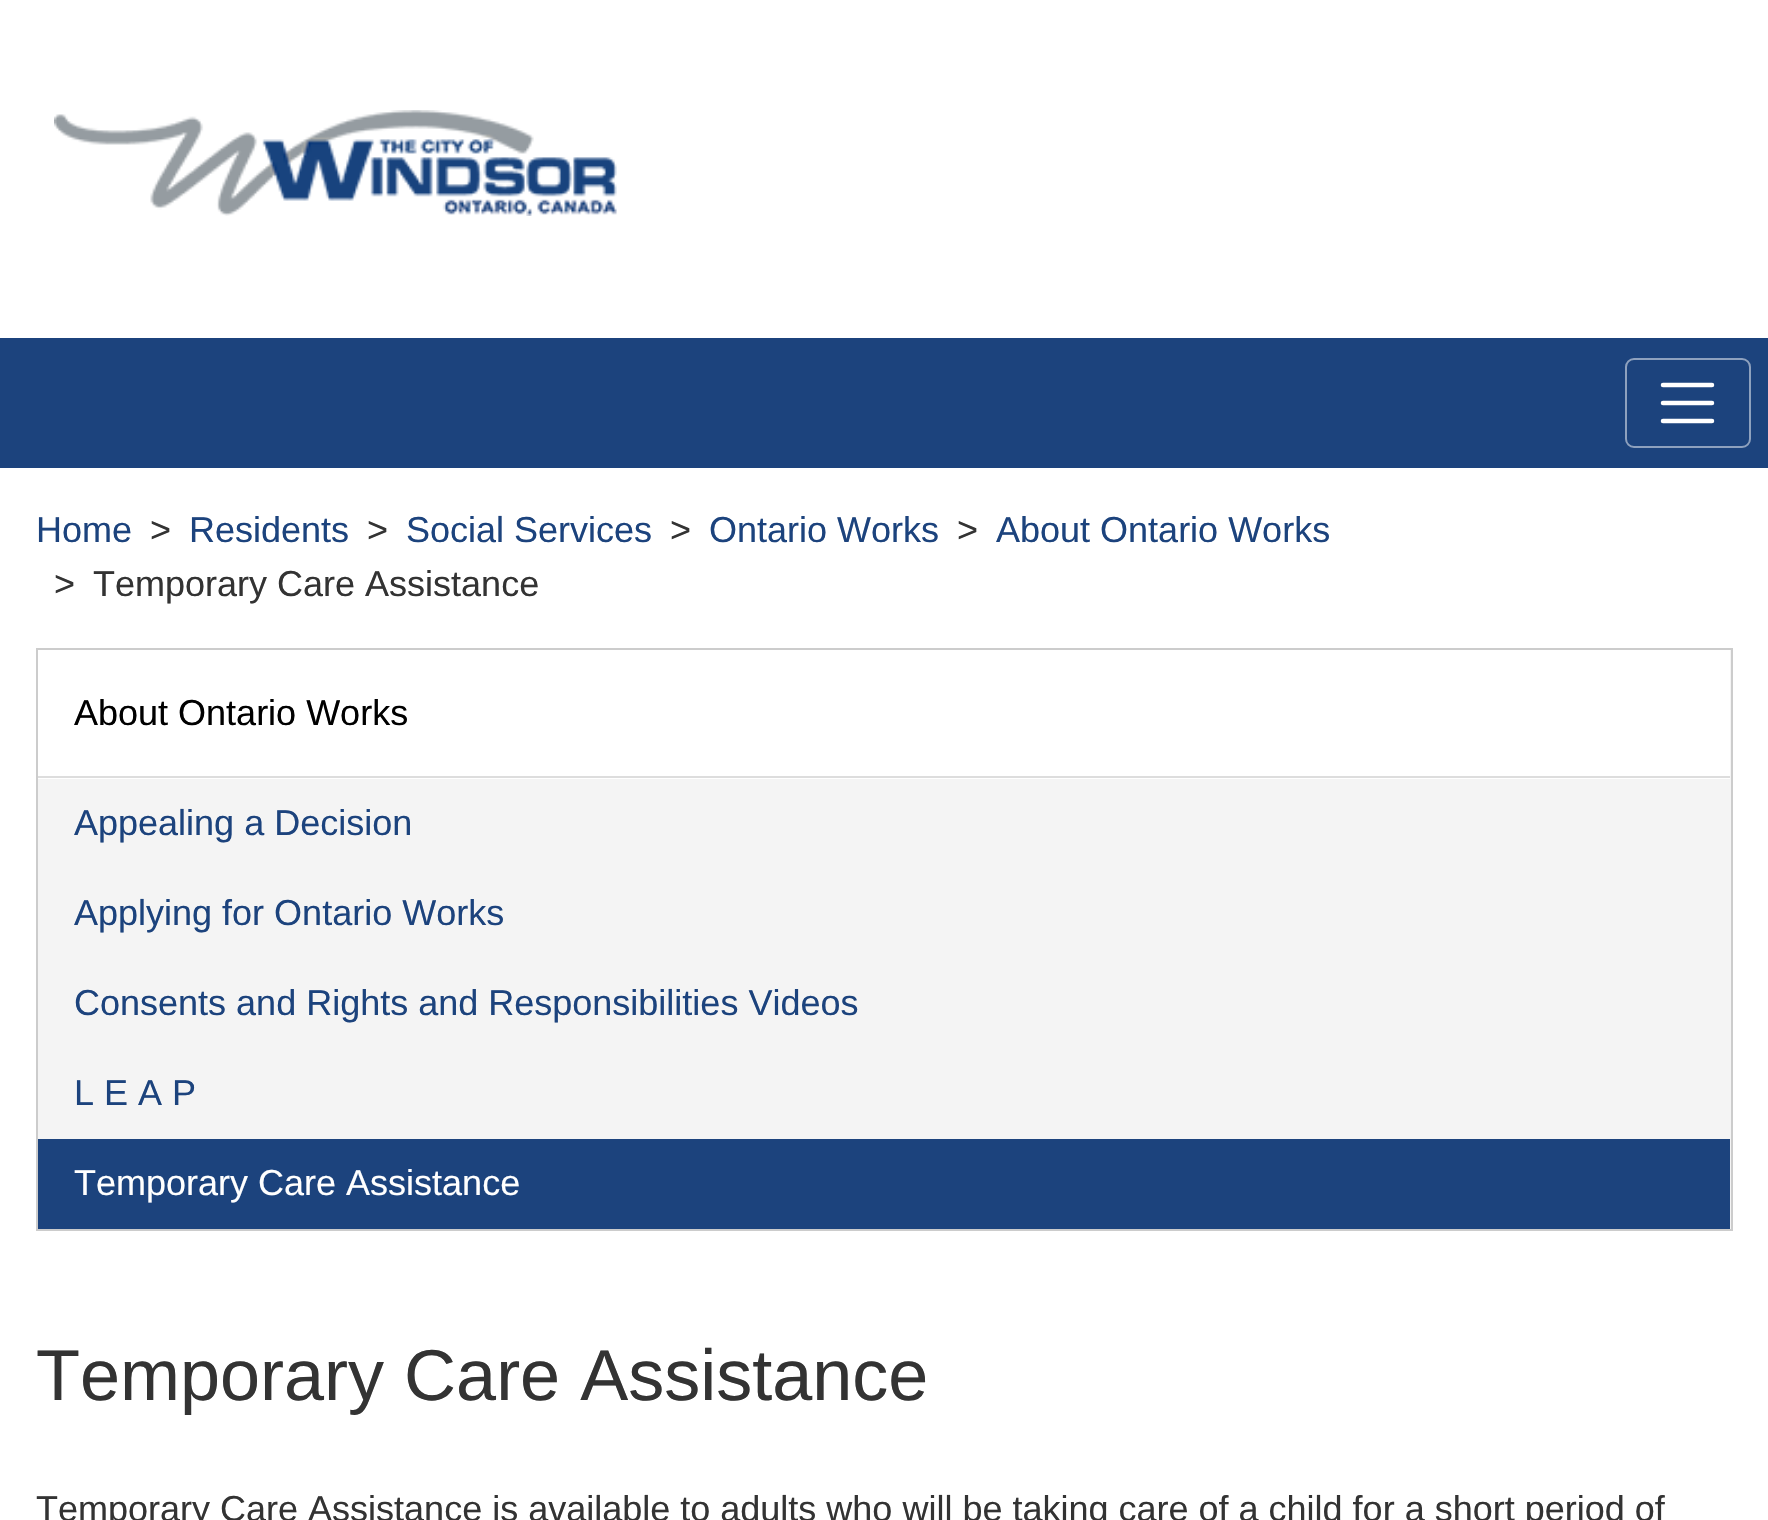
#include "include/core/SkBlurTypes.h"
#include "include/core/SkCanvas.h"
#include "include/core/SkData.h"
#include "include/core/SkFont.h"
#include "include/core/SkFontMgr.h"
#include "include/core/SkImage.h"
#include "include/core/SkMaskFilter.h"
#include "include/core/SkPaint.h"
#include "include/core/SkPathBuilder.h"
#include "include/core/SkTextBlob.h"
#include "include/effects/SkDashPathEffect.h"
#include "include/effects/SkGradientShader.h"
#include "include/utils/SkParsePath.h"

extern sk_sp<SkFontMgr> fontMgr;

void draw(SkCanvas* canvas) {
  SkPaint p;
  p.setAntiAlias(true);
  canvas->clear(SK_ColorWHITE);
  canvas->drawImageRect(SkImages::DeferredFromEncodedData(SkData::MakeFromFileName("images/1.png")), SkRect::MakeLTRB(54, 110, 617, 216), SkSamplingOptions());
  p.setColor(SkColorSetRGB(28, 67, 125));
  canvas->drawRect(SkRect::MakeLTRB(0, 338, 1768, 468), p);
  p.setStyle(SkPaint::kStroke_Style);
  p.setStrokeWidth(2);
  p.setColor(SkColorSetRGB(142, 161, 190));
  canvas->drawRoundRect(SkRect::MakeLTRB(1626, 359, 1750, 447), 8, 8, p);
  p.setStrokeWidth(4.5f);
  p.setStrokeCap(SkPaint::kRound_Cap);
  p.setColor(SK_ColorWHITE);
  canvas->drawPath(SkPathBuilder().moveTo(1663, 385).lineTo(1712, 385).moveTo(1663, 403).lineTo(1712, 403).moveTo(1663, 421).lineTo(1712, 421).detach(), p);
  p.setStyle(SkPaint::kFill_Style);
  p.setColor(SkColorSetRGB(244, 244, 244));
  canvas->drawRect(SkRect::MakeLTRB(37, 649, 1732, 1230), p);
  p.setStyle(SkPaint::kStroke_Style);
  p.setStrokeWidth(2);
  p.setStrokeCap(SkPaint::kButt_Cap);
  p.setColor(SkColorSetRGB(204, 204, 204));
  canvas->drawRect(SkRect::MakeLTRB(37, 649, 1732, 1230), p);
  p.setStyle(SkPaint::kFill_Style);
  p.setColor(SK_ColorWHITE);
  canvas->drawRect(SkRect::MakeLTRB(38, 650, 1730, 779), p);
  p.setColor(SkColorSetRGB(221, 221, 221));
  canvas->drawRect(SkRect::MakeLTRB(38, 776, 1730, 778), p);
  p.setColor(SkColorSetRGB(28, 67, 125));
  canvas->drawRect(SkRect::MakeLTRB(38, 1139, 1730, 1229), p);
  SkFont font1(fontMgr->matchFamilyStyle("Liberation Sans", SkFontStyle::Normal()), 36);
  font1.setSubpixel(true);
  canvas->drawString("Home", 36, 542, font1, p);
  p.setColor(SkColorSetRGB(51, 51, 51));
  canvas->drawString(">", 150, 542, font1, p);
  p.setColor(SkColorSetRGB(28, 67, 125));
  canvas->drawString("Residents", 189, 542, font1, p);
  p.setColor(SkColorSetRGB(51, 51, 51));
  canvas->drawString(">", 367, 542, font1, p);
  p.setColor(SkColorSetRGB(28, 67, 125));
  canvas->drawString("Social Services", 406, 542, font1, p);
  p.setColor(SkColorSetRGB(51, 51, 51));
  canvas->drawString(">", 670, 542, font1, p);
  p.setColor(SkColorSetRGB(28, 67, 125));
  canvas->drawString("Ontario Works", 709, 542, font1, p);
  p.setColor(SkColorSetRGB(51, 51, 51));
  canvas->drawString(">", 957, 542, font1, p);
  p.setColor(SkColorSetRGB(28, 67, 125));
  canvas->drawString("About Ontario Works", 996, 542, font1, p);
  p.setColor(SkColorSetRGB(51, 51, 51));
  canvas->drawString(">", 54, 596, font1, p);
  canvas->drawString("Temporary Care Assistance", 93, 596, font1, p);
  p.setColor(SK_ColorBLACK);
  canvas->drawString("About Ontario Works", 74, 725, font1, p);
  p.setColor(SkColorSetRGB(28, 67, 125));
  canvas->drawString("Appealing a Decision", 74, 835, font1, p);
  canvas->drawString("Applying for Ontario Works", 74, 925, font1, p);
  canvas->drawString("Consents and Rights and Responsibilities Videos", 74, 1015, font1, p);
  canvas->drawString("L E A P", 74, 1105, font1, p);
  p.setColor(SK_ColorWHITE);
  canvas->drawString("Temporary Care Assistance", 74, 1195, font1, p);
  SkFont font2(fontMgr->matchFamilyStyle("Liberation Sans", SkFontStyle::Normal()), 72);
  font2.setSubpixel(true);
  p.setColor(SkColorSetRGB(51, 51, 51));
  canvas->drawString("Temporary Care Assistance", 36, 1400, font2, p);
  canvas->drawString("Temporary Care Assistance is available to adults who will be taking care of a child for a short period of", 36, 1521, font1, p);
}
